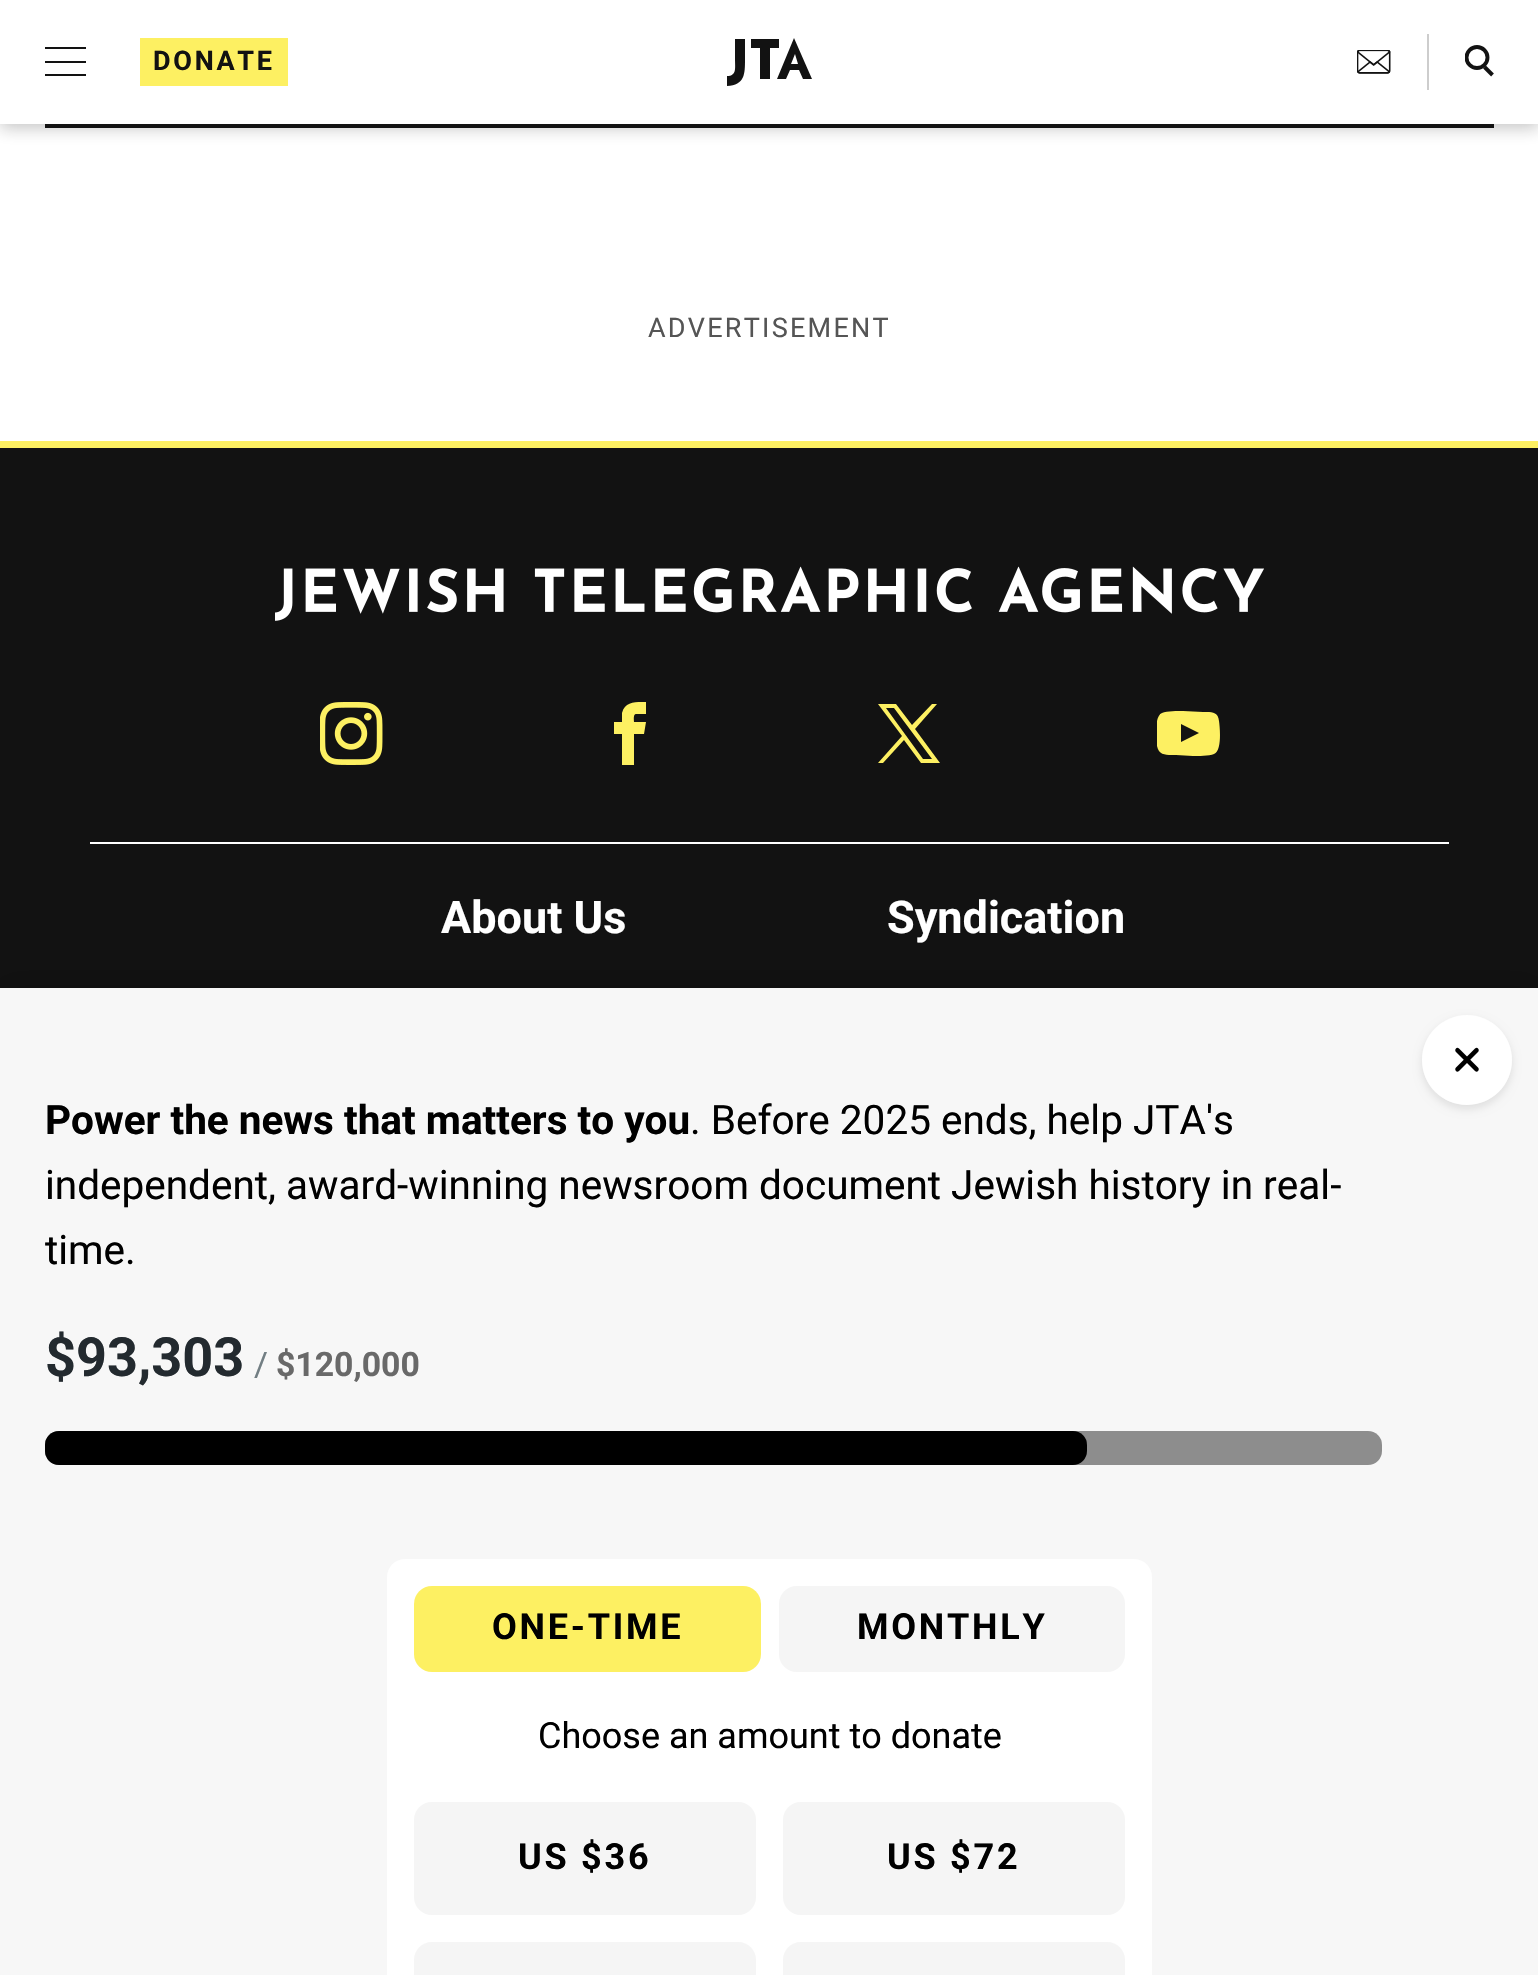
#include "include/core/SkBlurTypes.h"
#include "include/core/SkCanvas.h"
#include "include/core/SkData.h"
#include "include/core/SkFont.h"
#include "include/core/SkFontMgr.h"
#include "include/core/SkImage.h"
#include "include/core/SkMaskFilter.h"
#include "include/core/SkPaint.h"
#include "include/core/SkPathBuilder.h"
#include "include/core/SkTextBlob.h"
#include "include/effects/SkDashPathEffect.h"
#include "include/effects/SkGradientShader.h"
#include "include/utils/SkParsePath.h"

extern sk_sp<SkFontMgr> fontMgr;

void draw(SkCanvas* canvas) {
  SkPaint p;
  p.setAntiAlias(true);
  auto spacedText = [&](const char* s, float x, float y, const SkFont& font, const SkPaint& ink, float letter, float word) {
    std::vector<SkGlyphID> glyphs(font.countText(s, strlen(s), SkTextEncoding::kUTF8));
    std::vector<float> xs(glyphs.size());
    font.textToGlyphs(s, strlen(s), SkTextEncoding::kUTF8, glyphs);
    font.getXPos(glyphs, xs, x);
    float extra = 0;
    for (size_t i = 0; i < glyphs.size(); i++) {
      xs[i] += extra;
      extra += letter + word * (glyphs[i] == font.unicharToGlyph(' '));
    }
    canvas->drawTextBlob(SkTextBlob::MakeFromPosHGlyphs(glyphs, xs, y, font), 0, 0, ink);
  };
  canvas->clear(SK_ColorWHITE);
  p.setColor(SkColorSetRGB(18, 18, 18));
  canvas->drawRect(SkRect::MakeLTRB(45, 124, 1494, 128), p);
  p.setColor(SkColorSetARGB(64, 18, 18, 18));
  p.setMaskFilter(SkMaskFilter::MakeBlur(kNormal_SkBlurStyle, 8));
  canvas->drawRect(SkRect::MakeLTRB(0, 5, 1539, 128), p);
  p.setMaskFilter(nullptr);
  p.setColor(SK_ColorWHITE);
  canvas->drawRect(SkRect::MakeLTRB(0, 0, 1538, 124), p);
  p.setColor(SkColorSetRGB(18, 18, 18));
  canvas->drawRect(SkRect::MakeLTRB(45, 61, 86, 63), p);
  canvas->drawRect(SkRect::MakeLTRB(45, 47, 86, 49), p);
  canvas->drawRect(SkRect::MakeLTRB(45, 74, 86, 76), p);
  p.setColor(SkColorSetRGB(253, 240, 98));
  canvas->drawRect(SkRect::MakeLTRB(140, 38, 288, 86), p);
  p.setColor(SkColorSetRGB(18, 18, 18));
  canvas->drawPath(SkPathBuilder(SkPathFillType::kEvenOdd).moveTo(727, 86).lineTo(727, 76).cubicTo(737, 76, 735, 68, 735, 59).lineTo(735, 39).lineTo(745, 39).lineTo(745, 59).cubicTo(745, 74, 745, 85, 727, 86).close().moveTo(779, 39).lineTo(779, 48).lineTo(770, 48).lineTo(770, 79).lineTo(760, 79).lineTo(760, 48).lineTo(751, 48).lineTo(751, 39).close().moveTo(803, 79).lineTo(799, 70).lineTo(790, 70).lineTo(786, 79).lineTo(777, 79).lineTo(794, 38).lineTo(812, 79).close().moveTo(791, 64).lineTo(798, 64).lineTo(795, 54).close().detach(), p);
  p.setColor(SkColorSetRGB(205, 205, 205));
  canvas->drawRect(SkRect::MakeLTRB(1427, 34, 1429, 90), p);
  canvas->drawImageRect(SkImages::DeferredFromEncodedData(SkData::MakeFromFileName("images/1.png")), SkRect::MakeLTRB(1357, 50, 1391, 74), SkSamplingOptions());
  p.setStyle(SkPaint::kStroke_Style);
  p.setStrokeWidth(3.9f);
  p.setColor(SkColorSetRGB(18, 18, 18));
  canvas->drawPath(SkPathBuilder().moveTo(1492.5f, 75).lineTo(1484.5f, 67).detach(), p);
  canvas->save();
  canvas->clipRect(SkRect::MakeLTRB(1465, 45, 1494, 79));
  canvas->drawCircle(1477, 57.5f, 10.5f, p);
  canvas->restore();
  p.setStyle(SkPaint::kFill_Style);
  canvas->drawRect(SkRect::MakeLTRB(0, 448, 1538, 988), p);
  p.setColor(SkColorSetRGB(253, 240, 98));
  canvas->drawRect(SkRect::MakeLTRB(0, 441, 1538, 448), p);
  p.setColor(SK_ColorWHITE);
  canvas->drawRect(SkRect::MakeLTRB(90, 842, 1449, 844), p);
  canvas->drawImageRect(SkImages::DeferredFromEncodedData(SkData::MakeFromFileName("images/2.png")), SkRect::MakeLTRB(275, 566, 1264, 621), SkSamplingOptions());
  canvas->drawImageRect(SkImages::DeferredFromEncodedData(SkData::MakeFromFileName("images/3.png")), SkRect::MakeLTRB(320, 702, 383, 765), SkSamplingOptions());
  p.setColor(SkColorSetRGB(253, 240, 98));
  canvas->drawPath(SkPathBuilder().moveTo(636, 714).lineTo(646, 714).lineTo(646, 702).cubicTo(636, 702, 625, 701, 622, 713).lineTo(622, 722).lineTo(614, 722).lineTo(614, 734).lineTo(622, 734).lineTo(622, 765).lineTo(634, 765).lineTo(634, 734).lineTo(644, 734).lineTo(646, 722).lineTo(634, 722).cubicTo(634, 720, 633, 714, 636, 714).close().detach(), p);
  canvas->drawPath(SkPathBuilder().moveTo(886, 708).lineTo(894, 708).lineTo(932, 759).lineTo(923, 759).close().moveTo(878, 704).lineTo(902, 736).lineTo(878, 763).lineTo(883, 763).lineTo(904, 740).lineTo(921, 763).lineTo(940, 763).lineTo(915, 729).lineTo(937, 704).lineTo(932, 704).lineTo(912, 725).lineTo(896, 704).close().detach(), p);
  canvas->save();
  canvas->clipRect(SkRect::MakeLTRB(1157, 702, 1220, 765));
  canvas->drawPath(SkPathBuilder().moveTo(1219, 721).cubicTo(1218, 711, 1211, 712, 1203, 712).lineTo(1183, 711).cubicTo(1178, 711, 1167, 711, 1162, 713).cubicTo(1154, 716, 1156, 739, 1157, 746).cubicTo(1159, 756, 1167, 755, 1176, 755).lineTo(1193, 756).cubicTo(1198, 756, 1209, 756, 1214, 754).cubicTo(1222, 751, 1220, 728, 1219, 721).close().moveTo(1181, 742).lineTo(1181, 724).lineTo(1199, 733).close().detach(), p);
  canvas->restore();
  p.setColor(SkColorSetARGB(38, 0, 0, 0));
  p.setMaskFilter(SkMaskFilter::MakeBlur(kNormal_SkBlurStyle, 13.5f));
  canvas->drawRect(SkRect::MakeLTRB(0, 983, 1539, 1971), p);
  p.setMaskFilter(nullptr);
  p.setColor(SkColorSetRGB(247, 247, 247));
  canvas->drawRect(SkRect::MakeLTRB(0, 988, 1538, 1975), p);
  canvas->save();
  canvas->clipPath(SkPathBuilder(SkPathFillType::kEvenOdd).moveTo(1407, 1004).lineTo(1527, 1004).lineTo(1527, 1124).lineTo(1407, 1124).close().moveTo(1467, 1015).cubicTo(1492, 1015, 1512, 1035, 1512, 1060).cubicTo(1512, 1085, 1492, 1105, 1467, 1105).cubicTo(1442, 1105, 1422, 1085, 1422, 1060).cubicTo(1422, 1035, 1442, 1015, 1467, 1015).close().detach(), true);
  p.setColor(SkColorSetARGB(26, 0, 0, 0));
  p.setMaskFilter(SkMaskFilter::MakeBlur(kNormal_SkBlurStyle, 4.5f));
  canvas->drawRoundRect(SkRect::MakeLTRB(1422, 1019, 1512, 1109), 45, 45, p);
  p.setMaskFilter(nullptr);
  canvas->restore();
  p.setColor(SkColorSetARGB(230, 255, 255, 255));
  canvas->drawCircle(1467, 1060, 45, p);
  p.setColor(SK_ColorBLACK);
  canvas->drawPath(SkPathBuilder().moveTo(1459, 1048.5f).lineTo(1478, 1067.5f).cubicTo(1479, 1068.5f, 1479, 1070, 1478, 1071).cubicTo(1477.5f, 1072, 1476, 1072, 1475, 1071).lineTo(1456, 1052).cubicTo(1455, 1051, 1455, 1049.5f, 1456, 1048.5f).cubicTo(1456.5f, 1047.5f, 1458, 1047.5f, 1459, 1048.5f).close().detach(), p);
  canvas->drawPath(SkPathBuilder().moveTo(1456, 1067.5f).lineTo(1475, 1048.5f).cubicTo(1476, 1047.5f, 1477.5f, 1047.5f, 1478, 1048.5f).cubicTo(1479, 1049.5f, 1479, 1051, 1478, 1052).lineTo(1459, 1071).cubicTo(1458, 1072, 1456.5f, 1072, 1456, 1071).cubicTo(1455, 1070, 1455, 1068.5f, 1456, 1067.5f).close().detach(), p);
  p.setColor(SkColorSetRGB(141, 141, 141));
  canvas->drawRoundRect(SkRect::MakeLTRB(45, 1431, 1382, 1465), 14, 14, p);
  p.setColor(SK_ColorBLACK);
  canvas->drawRoundRect(SkRect::MakeLTRB(45, 1431, 1087, 1465), 14, 14, p);
  p.setColor(SK_ColorWHITE);
  canvas->drawPath(SkPathBuilder().moveTo(405, 1559).lineTo(1134, 1559).cubicTo(1144, 1559, 1152, 1567, 1152, 1577).lineTo(1152, 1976).lineTo(387, 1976).lineTo(387, 1577).cubicTo(387, 1567, 395, 1559, 405, 1559).close().detach(), p);
  p.setColor(SkColorSetRGB(253, 240, 98));
  canvas->drawRoundRect(SkRect::MakeLTRB(414, 1586, 761, 1672), 18, 18, p);
  p.setColor(SkColorSetRGB(245, 245, 245));
  canvas->drawRoundRect(SkRect::MakeLTRB(779, 1586, 1125, 1672), 18, 18, p);
  canvas->drawRoundRect(SkRect::MakeLTRB(414, 1802, 756, 1915), 18, 18, p);
  canvas->drawRoundRect(SkRect::MakeLTRB(783, 1802, 1125, 1915), 18, 18, p);
  canvas->drawPath(SkPathBuilder().moveTo(432, 1942).lineTo(738, 1942).cubicTo(748, 1942, 756, 1950, 756, 1960).lineTo(756, 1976).lineTo(414, 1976).lineTo(414, 1960).cubicTo(414, 1950, 422, 1942, 432, 1942).close().detach(), p);
  canvas->drawPath(SkPathBuilder().moveTo(801, 1942).lineTo(1107, 1942).cubicTo(1117, 1942, 1125, 1950, 1125, 1960).lineTo(1125, 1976).lineTo(783, 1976).lineTo(783, 1960).cubicTo(783, 1950, 791, 1942, 801, 1942).close().detach(), p);
  SkFont font1(fontMgr->matchFamilyStyle("Roboto", SkFontStyle::Bold()), 27);
  font1.setSubpixel(true);
  p.setColor(SkColorSetRGB(18, 18, 18));
  spacedText("DONATE", 153, 70, font1, p, 2.75f, 0);
  SkFont font2(fontMgr->matchFamilyStyle("Roboto", SkFontStyle::Normal()), 27);
  font2.setSubpixel(true);
  p.setColor(SkColorSetRGB(85, 85, 85));
  spacedText("ADVERTISEMENT", 648, 337, font2, p, 2.25f, 0);
  SkFont font3(fontMgr->matchFamilyStyle("Roboto", SkFontStyle::Bold()), 45);
  font3.setSubpixel(true);
  p.setColor(SK_ColorWHITE);
  canvas->drawString("About Us", 441, 933, font3, p);
  canvas->drawString("Syndication", 887, 933, font3, p);
  SkFont font4(fontMgr->matchFamilyStyle("Roboto", SkFontStyle::Bold()), 40.5f);
  font4.setSubpixel(true);
  p.setColor(SK_ColorBLACK);
  canvas->drawString("Power the news that matters to you", 45, 1134, font4, p);
  SkFont font5(fontMgr->matchFamilyStyle("Roboto", SkFontStyle::Normal()), 40.5f);
  font5.setSubpixel(true);
  canvas->drawString(". Before 2025 ends, help JTA's", 690, 1134, font5, p);
  canvas->drawString("independent, award-winning newsroom document Jewish history in real-", 45, 1199, font5, p);
  canvas->drawString("time.", 45, 1264, font5, p);
  SkFont font6(fontMgr->matchFamilyStyle("Roboto", SkFontStyle::Bold()), 54);
  font6.setSubpixel(true);
  p.setColor(SkColorSetRGB(35, 42, 47));
  canvas->drawString("$93,303", 45, 1376, font6, p);
  SkFont font7(fontMgr->matchFamilyStyle("Roboto", SkFontStyle::Normal()), 33.75f);
  font7.setSubpixel(true);
  p.setColor(SkColorSetRGB(114, 126, 131));
  canvas->drawString("/", 254, 1376, font7, p);
  SkFont font8(fontMgr->matchFamilyStyle("Roboto", SkFontStyle::Bold()), 33.75f);
  font8.setSubpixel(true);
  p.setColor(SkColorSetRGB(105, 105, 105));
  canvas->drawString("$120,000", 276, 1376, font8, p);
  SkFont font9(fontMgr->matchFamilyStyle("Roboto", SkFontStyle::Bold()), 36);
  font9.setSubpixel(true);
  p.setColor(SK_ColorBLACK);
  spacedText("ONE-TIME", 492, 1639, font9, p, 2.75f, 0);
  spacedText("MONTHLY", 857, 1639, font9, p, 2.75f, 0);
  SkFont font10(fontMgr->matchFamilyStyle("Roboto", SkFontStyle::Normal()), 36);
  font10.setSubpixel(true);
  canvas->drawString("Choose an amount to donate", 538, 1748, font10, p);
  spacedText("US $36", 518, 1869, font9, p, 2.75f, 0);
  spacedText("US $72", 887, 1869, font9, p, 2.75f, 0);
}
